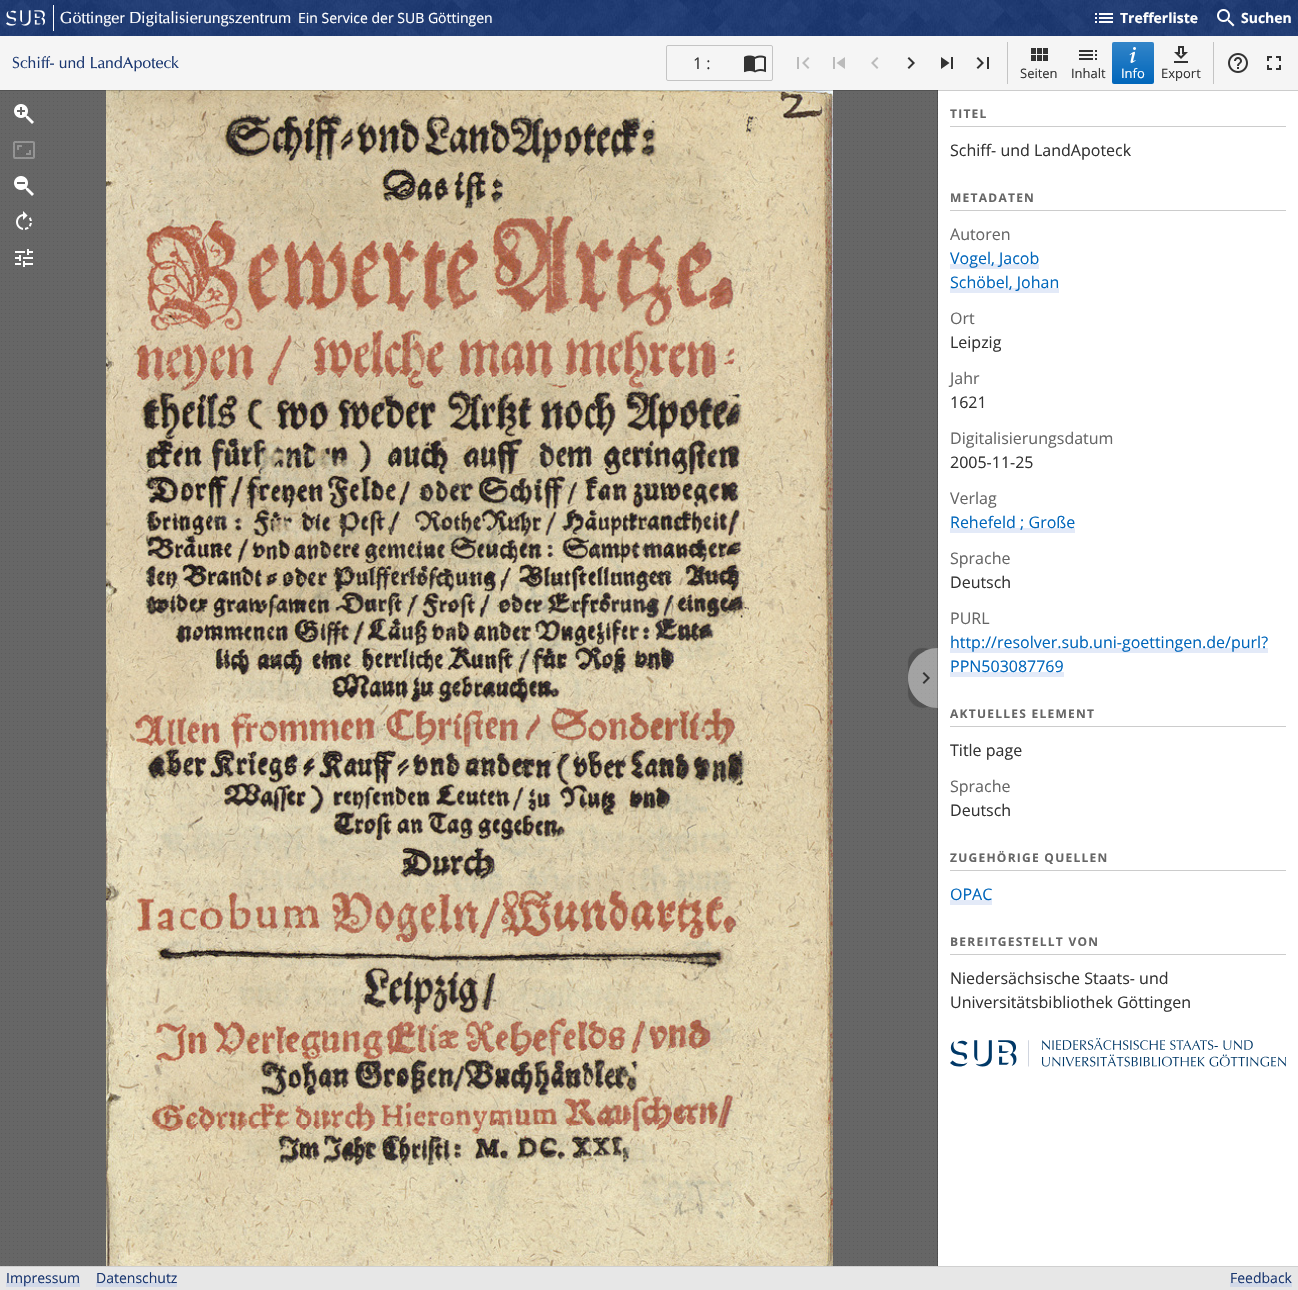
#include "include/core/SkBlurTypes.h"
#include "include/core/SkCanvas.h"
#include "include/core/SkData.h"
#include "include/core/SkFont.h"
#include "include/core/SkFontMgr.h"
#include "include/core/SkImage.h"
#include "include/core/SkMaskFilter.h"
#include "include/core/SkPaint.h"
#include "include/core/SkPathBuilder.h"
#include "include/core/SkTextBlob.h"
#include "include/effects/SkDashPathEffect.h"
#include "include/effects/SkGradientShader.h"
#include "include/utils/SkParsePath.h"

extern sk_sp<SkFontMgr> fontMgr;

void draw(SkCanvas* canvas) {
  SkPaint p;
  p.setAntiAlias(true);
  auto spacedText = [&](const char* s, float x, float y, const SkFont& font, const SkPaint& ink, float letter, float word) {
    std::vector<SkGlyphID> glyphs(font.countText(s, strlen(s), SkTextEncoding::kUTF8));
    std::vector<float> xs(glyphs.size());
    font.textToGlyphs(s, strlen(s), SkTextEncoding::kUTF8, glyphs);
    font.getXPos(glyphs, xs, x);
    float extra = 0;
    for (size_t i = 0; i < glyphs.size(); i++) {
      xs[i] += extra;
      extra += letter + word * (glyphs[i] == font.unicharToGlyph(' '));
    }
    canvas->drawTextBlob(SkTextBlob::MakeFromPosHGlyphs(glyphs, xs, y, font), 0, 0, ink);
  };
  canvas->clear(SkColorSetRGB(231, 231, 231));
  canvas->drawImageRect(SkImages::DeferredFromEncodedData(SkData::MakeFromFileName("images/1.png")), SkRect::MakeLTRB(0, 0, 1298, 36), SkSamplingOptions());
  canvas->drawImageRect(SkImages::DeferredFromEncodedData(SkData::MakeFromFileName("images/2.png")), SkRect::MakeLTRB(6, 10, 45, 26), SkSamplingOptions());
  p.setColor(SK_ColorWHITE);
  canvas->drawRect(SkRect::MakeLTRB(53, 5, 54, 31), p);
  canvas->drawImageRect(SkImages::DeferredFromEncodedData(SkData::MakeFromFileName("images/3.png")), SkRect::MakeLTRB(1095, 13, 1113, 23), SkSamplingOptions());
  canvas->drawImageRect(SkImages::DeferredFromEncodedData(SkData::MakeFromFileName("images/4.png")), SkRect::MakeLTRB(1217, 9, 1235, 27), SkSamplingOptions());
  p.setColor(SkColorSetRGB(102, 102, 102));
  canvas->drawRect(SkRect::MakeLTRB(0, 90, 938, 1266), p);
  canvas->drawImageRect(SkImages::DeferredFromEncodedData(SkData::MakeFromFileName("images/5.png")), SkRect::MakeLTRB(1, 93, 938, 1266), SkSamplingOptions());
  canvas->drawImageRect(SkImages::DeferredFromEncodedData(SkData::MakeFromFileName("images/24.png")), SkRect::MakeLTRB(106, 90, 833, 1266), SkSamplingOptions());
  canvas->save();
  canvas->clipPath(SkPathBuilder(SkPathFillType::kEvenOdd).moveTo(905, 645).lineTo(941, 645).lineTo(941, 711).lineTo(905, 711).close().moveTo(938, 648).lineTo(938, 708).cubicTo(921.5f, 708, 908, 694.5f, 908, 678).cubicTo(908, 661.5f, 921.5f, 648, 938, 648).close().detach(), true);
  p.setColor(SkColorSetARGB(51, 0, 0, 0));
  p.setMaskFilter(SkMaskFilter::MakeBlur(kNormal_SkBlurStyle, 0.5f));
  canvas->drawRoundRect(SkRect::MakeLTRB(908, 648, 938, 708), 30, 30, p);
  p.setMaskFilter(nullptr);
  canvas->restore();
  p.setColor(SkColorSetARGB(102, 255, 255, 255));
  canvas->drawPath(SkPathBuilder().moveTo(938, 648).lineTo(938, 708).cubicTo(921.5f, 708, 908, 694.5f, 908, 678).cubicTo(908, 661.5f, 921.5f, 648, 938, 648).close().detach(), p);
  p.setColor(SkColorSetARGB(51, 0, 0, 0));
  canvas->drawRect(SkRect::MakeLTRB(937, 90, 938, 1266), p);
  p.setColor(SK_ColorWHITE);
  canvas->drawRect(SkRect::MakeLTRB(938, 90, 1298, 1266), p);
  p.setColor(SkColorSetARGB(51, 0, 0, 0));
  canvas->drawRect(SkRect::MakeLTRB(0, 90, 1298, 91), p);
  p.setColor(SkColorSetRGB(245, 245, 245));
  canvas->drawRect(SkRect::MakeLTRB(0, 36, 1298, 90), p);
  p.setStyle(SkPaint::kStroke_Style);
  p.setStrokeWidth(1);
  p.setColor(SkColorSetRGB(196, 196, 196));
  canvas->drawRoundRect(SkRect::MakeLTRB(666.5f, 45.5f, 772.5f, 80.5f), 1.5f, 1.5f, p);
  canvas->drawImageRect(SkImages::DeferredFromEncodedData(SkData::MakeFromFileName("images/6.png")), SkRect::MakeLTRB(744, 55, 766, 73), SkSamplingOptions());
  canvas->drawImageRect(SkImages::DeferredFromEncodedData(SkData::MakeFromFileName("images/7.png")), SkRect::MakeLTRB(797, 57, 810, 69), SkSamplingOptions());
  canvas->drawImageRect(SkImages::DeferredFromEncodedData(SkData::MakeFromFileName("images/8.png")), SkRect::MakeLTRB(833, 57, 845, 69), SkSamplingOptions());
  canvas->drawImageRect(SkImages::DeferredFromEncodedData(SkData::MakeFromFileName("images/9.png")), SkRect::MakeLTRB(871, 57, 879, 69), SkSamplingOptions());
  canvas->drawImageRect(SkImages::DeferredFromEncodedData(SkData::MakeFromFileName("images/10.png")), SkRect::MakeLTRB(907, 57, 915, 69), SkSamplingOptions());
  canvas->drawImageRect(SkImages::DeferredFromEncodedData(SkData::MakeFromFileName("images/11.png")), SkRect::MakeLTRB(941, 57, 953, 69), SkSamplingOptions());
  canvas->drawImageRect(SkImages::DeferredFromEncodedData(SkData::MakeFromFileName("images/12.png")), SkRect::MakeLTRB(976, 57, 989, 69), SkSamplingOptions());
  p.setStyle(SkPaint::kFill_Style);
  canvas->drawRect(SkRect::MakeLTRB(1007, 42, 1008, 84), p);
  canvas->drawImageRect(SkImages::DeferredFromEncodedData(SkData::MakeFromFileName("images/13.png")), SkRect::MakeLTRB(1031, 48, 1048, 61), SkSamplingOptions());
  canvas->drawImageRect(SkImages::DeferredFromEncodedData(SkData::MakeFromFileName("images/14.png")), SkRect::MakeLTRB(1079, 50, 1097, 60), SkSamplingOptions());
  p.setColor(SkColorSetRGB(0, 102, 187));
  canvas->drawRoundRect(SkRect::MakeLTRB(1112, 42, 1154, 84), 2, 2, p);
  {
    const SkColor colors[] = {SkColorSetARGB(51, 255, 255, 255), SkColorSetARGB(0, 255, 255, 255)};
    const float stops[] = {0, 1};
    const SkPoint ends[] = {{1133, 42}, {1133, 84}};
    p.setShader(SkGradientShader::MakeLinear(ends, colors, stops, 2, SkTileMode::kClamp));
    p.setAlpha(255);
  }
  canvas->drawRoundRect(SkRect::MakeLTRB(1112, 42, 1154, 84), 2, 2, p);
  canvas->drawImageRect(SkImages::DeferredFromEncodedData(SkData::MakeFromFileName("images/15.png")), SkRect::MakeLTRB(1129, 47, 1136, 63), SkSamplingOptions());
  canvas->drawImageRect(SkImages::DeferredFromEncodedData(SkData::MakeFromFileName("images/16.png")), SkRect::MakeLTRB(1174, 46, 1188, 63), SkSamplingOptions());
  p.setShader(nullptr);
  p.setColor(SkColorSetRGB(196, 196, 196));
  canvas->drawRect(SkRect::MakeLTRB(1213, 42, 1214, 84), p);
  canvas->drawImageRect(SkImages::DeferredFromEncodedData(SkData::MakeFromFileName("images/17.png")), SkRect::MakeLTRB(1228, 53, 1248, 73), SkSamplingOptions());
  canvas->drawImageRect(SkImages::DeferredFromEncodedData(SkData::MakeFromFileName("images/18.png")), SkRect::MakeLTRB(1267, 56, 1281, 70), SkSamplingOptions());
  canvas->drawImageRect(SkImages::DeferredFromEncodedData(SkData::MakeFromFileName("images/19.png")), SkRect::MakeLTRB(14, 104, 34, 124), SkSamplingOptions());
  canvas->drawImageRect(SkImages::DeferredFromEncodedData(SkData::MakeFromFileName("images/20.png")), SkRect::MakeLTRB(13, 141, 35, 159), SkSamplingOptions());
  canvas->drawImageRect(SkImages::DeferredFromEncodedData(SkData::MakeFromFileName("images/21.png")), SkRect::MakeLTRB(14, 176, 34, 196), SkSamplingOptions());
  canvas->drawImageRect(SkImages::DeferredFromEncodedData(SkData::MakeFromFileName("images/22.png")), SkRect::MakeLTRB(16, 211, 32, 230), SkSamplingOptions());
  canvas->drawImageRect(SkImages::DeferredFromEncodedData(SkData::MakeFromFileName("images/23.png")), SkRect::MakeLTRB(15, 249, 33, 267), SkSamplingOptions());
  canvas->drawImageRect(SkImages::DeferredFromEncodedData(SkData::MakeFromFileName("images/25.png")), SkRect::MakeLTRB(922, 672, 930, 684), SkSamplingOptions());
  p.setColor(SkColorSetRGB(204, 204, 204));
  canvas->drawRect(SkRect::MakeLTRB(950, 126, 1286, 127), p);
  canvas->drawRect(SkRect::MakeLTRB(950, 210, 1286, 211), p);
  p.setColor(SkColorSetRGB(227, 234, 248));
  canvas->drawRect(SkRect::MakeLTRB(950, 264, 1039, 269), p);
  canvas->drawRect(SkRect::MakeLTRB(950, 288, 1059, 293), p);
  canvas->drawRect(SkRect::MakeLTRB(950, 528, 1075, 533), p);
  canvas->drawRect(SkRect::MakeLTRB(950, 648, 1268, 653), p);
  canvas->drawRect(SkRect::MakeLTRB(950, 672, 1064, 677), p);
  p.setColor(SkColorSetRGB(204, 204, 204));
  canvas->drawRect(SkRect::MakeLTRB(950, 726, 1286, 727), p);
  canvas->drawRect(SkRect::MakeLTRB(950, 870, 1286, 871), p);
  p.setColor(SkColorSetRGB(227, 234, 248));
  canvas->drawRect(SkRect::MakeLTRB(950, 900, 992, 905), p);
  p.setColor(SkColorSetRGB(204, 204, 204));
  canvas->drawRect(SkRect::MakeLTRB(950, 954, 1286, 955), p);
  canvas->drawImageRect(SkImages::DeferredFromEncodedData(SkData::MakeFromFileName("images/26.png")), SkRect::MakeLTRB(950, 1038, 1286, 1067), SkSamplingOptions());
  p.setColor(SkColorSetRGB(208, 208, 208));
  canvas->drawRect(SkRect::MakeLTRB(0, 1266, 1298, 1267), p);
  p.setColor(SkColorSetRGB(210, 217, 232));
  canvas->drawRect(SkRect::MakeLTRB(6, 1282, 80, 1287), p);
  canvas->drawRect(SkRect::MakeLTRB(96, 1282, 177, 1287), p);
  canvas->drawRect(SkRect::MakeLTRB(1230, 1282, 1292, 1287), p);
  SkFont font1(fontMgr->matchFamilyStyle("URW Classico", SkFontStyle::Normal()), 16);
  font1.setSubpixel(true);
  p.setColor(SK_ColorWHITE);
  canvas->drawString("Göttinger Digitalisierungszentrum", 60, 23, font1, p);
  SkFont font2(fontMgr->matchFamilyStyle("Open Sans", SkFontStyle::Normal()), 14);
  font2.setSubpixel(true);
  canvas->drawString("Ein Service der SUB Göttingen", 298, 23, font2, p);
  SkFont font3(fontMgr->matchFamilyStyle("Open Sans", SkFontStyle::Bold()), 14);
  font3.setSubpixel(true);
  canvas->drawString("Trefferliste", 1120, 23, font3, p);
  canvas->drawString("Suchen", 1241, 23, font3, p);
  p.setColor(SkColorSetRGB(26, 55, 113));
  canvas->drawString("Schiff- und LandApoteck", 12, 68, font1, p);
  SkFont font4(fontMgr->matchFamilyStyle("Open Sans", SkFontStyle::Normal()), 16);
  font4.setSubpixel(true);
  p.setColor(SkColorSetRGB(51, 51, 51));
  canvas->drawString("1 :", 693, 69, font4, p);
  SkFont font5(fontMgr->matchFamilyStyle("Open Sans", SkFontStyle::Normal()), 13);
  font5.setSubpixel(true);
  canvas->drawString("Seiten", 1020, 78, font5, p);
  canvas->drawString("Inhalt", 1071, 78, font5, p);
  p.setColor(SK_ColorWHITE);
  canvas->drawString("Info", 1121, 78, font5, p);
  p.setColor(SkColorSetRGB(51, 51, 51));
  canvas->drawString("Export", 1161, 78, font5, p);
  SkFont font6(fontMgr->matchFamilyStyle("Open Sans", SkFontStyle::Bold()), 12);
  font6.setSubpixel(true);
  p.setColor(SkColorSetRGB(102, 102, 102));
  spacedText("TITEL", 950, 118, font6, p, 1.25f, 0);
  p.setColor(SkColorSetRGB(51, 51, 51));
  canvas->drawString("Schiff- und LandApoteck", 950, 156, font4, p);
  p.setColor(SkColorSetRGB(102, 102, 102));
  spacedText("METADATEN", 950, 202, font6, p, 1.25f, 0);
  canvas->drawString("Autoren", 950, 240, font4, p);
  p.setColor(SkColorSetRGB(0, 102, 187));
  canvas->drawString("Vogel, Jacob", 950, 264, font4, p);
  canvas->drawString("Schöbel, Johan", 950, 288, font4, p);
  p.setColor(SkColorSetRGB(102, 102, 102));
  canvas->drawString("Ort", 950, 324, font4, p);
  p.setColor(SkColorSetRGB(51, 51, 51));
  canvas->drawString("Leipzig", 950, 348, font4, p);
  p.setColor(SkColorSetRGB(102, 102, 102));
  canvas->drawString("Jahr", 950, 384, font4, p);
  p.setColor(SkColorSetRGB(51, 51, 51));
  canvas->drawString("1621", 950, 408, font4, p);
  p.setColor(SkColorSetRGB(102, 102, 102));
  canvas->drawString("Digitalisierungsdatum", 950, 444, font4, p);
  p.setColor(SkColorSetRGB(51, 51, 51));
  canvas->drawString("2005-11-25", 950, 468, font4, p);
  p.setColor(SkColorSetRGB(102, 102, 102));
  canvas->drawString("Verlag", 950, 504, font4, p);
  p.setColor(SkColorSetRGB(0, 102, 187));
  canvas->drawString("Rehefeld ; Große", 950, 528, font4, p);
  p.setColor(SkColorSetRGB(102, 102, 102));
  canvas->drawString("Sprache", 950, 564, font4, p);
  p.setColor(SkColorSetRGB(51, 51, 51));
  canvas->drawString("Deutsch", 950, 588, font4, p);
  p.setColor(SkColorSetRGB(102, 102, 102));
  canvas->drawString("PURL", 950, 624, font4, p);
  p.setColor(SkColorSetRGB(0, 102, 187));
  canvas->drawString("http://resolver.sub.uni-goettingen.de/purl?", 950, 648, font4, p);
  canvas->drawString("PPN503087769", 950, 672, font4, p);
  p.setColor(SkColorSetRGB(102, 102, 102));
  spacedText("AKTUELLES ELEMENT", 950, 718, font6, p, 1.25f, 0);
  p.setColor(SkColorSetRGB(51, 51, 51));
  canvas->drawString("Title page", 950, 756, font4, p);
  p.setColor(SkColorSetRGB(102, 102, 102));
  canvas->drawString("Sprache", 950, 792, font4, p);
  p.setColor(SkColorSetRGB(51, 51, 51));
  canvas->drawString("Deutsch", 950, 816, font4, p);
  p.setColor(SkColorSetRGB(102, 102, 102));
  spacedText("ZUGEHÖRIGE QUELLEN", 950, 862, font6, p, 1.25f, 0);
  p.setColor(SkColorSetRGB(0, 102, 187));
  canvas->drawString("OPAC", 950, 900, font4, p);
  p.setColor(SkColorSetRGB(102, 102, 102));
  spacedText("BEREITGESTELLT VON", 950, 946, font6, p, 1.25f, 0);
  p.setColor(SkColorSetRGB(51, 51, 51));
  canvas->drawString("Niedersächsische Staats- und", 950, 984, font4, p);
  canvas->drawString("Universitätsbibliothek Göttingen", 950, 1008, font4, p);
  p.setColor(SkColorSetRGB(26, 55, 113));
  canvas->drawString("Impressum", 6, 1283, font2, p);
  canvas->drawString("Datenschutz", 96, 1283, font2, p);
  canvas->drawString("Feedback", 1230, 1283, font2, p);
}
